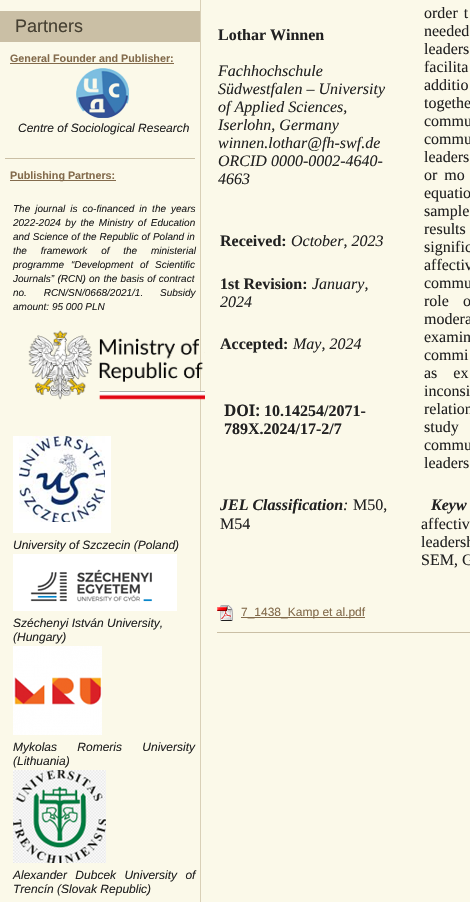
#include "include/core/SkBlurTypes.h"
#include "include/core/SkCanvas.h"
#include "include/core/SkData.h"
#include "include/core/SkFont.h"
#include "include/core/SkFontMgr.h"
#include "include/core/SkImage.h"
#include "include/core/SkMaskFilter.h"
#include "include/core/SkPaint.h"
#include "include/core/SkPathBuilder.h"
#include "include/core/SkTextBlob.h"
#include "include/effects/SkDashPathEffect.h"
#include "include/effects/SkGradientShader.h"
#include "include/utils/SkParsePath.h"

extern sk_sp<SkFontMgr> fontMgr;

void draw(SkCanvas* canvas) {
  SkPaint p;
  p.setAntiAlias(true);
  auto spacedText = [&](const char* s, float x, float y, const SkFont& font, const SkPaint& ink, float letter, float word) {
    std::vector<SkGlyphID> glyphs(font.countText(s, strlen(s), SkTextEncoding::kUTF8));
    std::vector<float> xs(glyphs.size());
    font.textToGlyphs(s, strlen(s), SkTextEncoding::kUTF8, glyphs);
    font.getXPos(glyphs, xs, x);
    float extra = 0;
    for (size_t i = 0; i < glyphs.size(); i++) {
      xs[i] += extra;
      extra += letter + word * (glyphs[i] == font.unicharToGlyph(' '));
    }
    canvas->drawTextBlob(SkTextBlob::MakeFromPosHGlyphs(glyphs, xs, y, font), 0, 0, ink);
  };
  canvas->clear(SK_ColorWHITE);
  canvas->drawImageRect(SkImages::DeferredFromEncodedData(SkData::MakeFromFileName("images/1.png")), SkRect::MakeLTRB(0, 0, 470, 902), SkSamplingOptions());
  p.setColor(SkColorSetRGB(202, 191, 165));
  canvas->drawRect(SkRect::MakeLTRB(0, 11, 200, 42), p);
  canvas->drawRect(SkRect::MakeLTRB(5, 158, 195, 159), p);
  p.setColor(SkColorSetRGB(131, 107, 76));
  canvas->drawRect(SkRect::MakeLTRB(10, 63, 174, 64), p);
  canvas->drawImageRect(SkImages::DeferredFromEncodedData(SkData::MakeFromFileName("images/2.png")), SkRect::MakeLTRB(76, 68, 129, 118), SkSamplingOptions());
  canvas->drawRect(SkRect::MakeLTRB(10, 180, 116, 181), p);
  canvas->drawImageRect(SkImages::DeferredFromEncodedData(SkData::MakeFromFileName("images/3.png")), SkRect::MakeLTRB(28, 330, 205, 400), SkSamplingOptions());
  canvas->drawImageRect(SkImages::DeferredFromEncodedData(SkData::MakeFromFileName("images/4.png")), SkRect::MakeLTRB(13, 436, 111, 533), SkSamplingOptions());
  canvas->drawImageRect(SkImages::DeferredFromEncodedData(SkData::MakeFromFileName("images/5.png")), SkRect::MakeLTRB(13, 554, 177, 611), SkSamplingOptions());
  canvas->drawImageRect(SkImages::DeferredFromEncodedData(SkData::MakeFromFileName("images/6.png")), SkRect::MakeLTRB(13, 646, 102, 735), SkSamplingOptions());
  canvas->drawImageRect(SkImages::DeferredFromEncodedData(SkData::MakeFromFileName("images/7.png")), SkRect::MakeLTRB(13, 770, 106, 863), SkSamplingOptions());
  p.setColor(SkColorSetRGB(202, 191, 165));
  canvas->drawRect(SkRect::MakeLTRB(217, 632, 470, 633), p);
  canvas->drawImageRect(SkImages::DeferredFromEncodedData(SkData::MakeFromFileName("images/8.png")), SkRect::MakeLTRB(217, 605, 233, 621), SkSamplingOptions());
  p.setColor(SkColorSetRGB(131, 107, 76));
  canvas->drawRect(SkRect::MakeLTRB(241, 617, 365, 618), p);
  SkFont font1(fontMgr->matchFamilyStyle("Liberation Sans", SkFontStyle::Normal()), 18);
  font1.setSubpixel(true);
  p.setColor(SkColorSetRGB(70, 64, 50));
  canvas->drawString("Partners", 15, 32, font1, p);
  SkFont font2(fontMgr->matchFamilyStyle("Liberation Sans", SkFontStyle::Bold()), 10.75f);
  font2.setSubpixel(true);
  p.setColor(SkColorSetRGB(131, 107, 76));
  canvas->drawString("General Founder and Publisher:", 10, 62, font2, p);
  SkFont font3(fontMgr->matchFamilyStyle("Liberation Sans", SkFontStyle::Italic()), 12);
  font3.setSubpixel(true);
  p.setColor(SkColorSetRGB(34, 34, 34));
  canvas->drawString("Centre of Sociological Research", 18, 132, font3, p);
  p.setColor(SkColorSetRGB(131, 107, 76));
  canvas->drawString("Publishing Partners:", 10, 179, font2, p);
  SkFont font4(fontMgr->matchFamilyStyle("Liberation Sans", SkFontStyle::Italic()), 10);
  font4.setSubpixel(true);
  p.setColor(SkColorSetRGB(34, 34, 34));
  spacedText("The journal is co-financed in the years", 13, 212, font4, p, 0, 2.25f);
  spacedText("2022-2024 by the Ministry of Education", 13, 226, font4, p, 0, 1.75f);
  spacedText("and Science of the Republic of Poland in", 13, 240, font4, p, 0, 0.25f);
  spacedText("the framework of the ministerial", 13, 254, font4, p, 0, 11);
  spacedText("programme “Development of Scientific", 13, 268, font4, p, 0, 4);
  spacedText("Journals” (RCN) on the basis of contract", 13, 282, font4, p, 0, 0.5f);
  spacedText("no. RCN/SN/0668/2021/1. Subsidy", 13, 296, font4, p, 0, 14);
  canvas->drawString("amount: 95 000 PLN", 13, 310, font4, p);
  canvas->drawString("University of Szczecin (Poland)", 13, 549, font3, p);
  canvas->drawString("Széchenyi István University,", 13, 627, font3, p);
  canvas->drawString("(Hungary)", 13, 641, font3, p);
  spacedText("Mykolas Romeris University", 13, 751, font3, p, 0, 17);
  canvas->drawString("(Lithuania)", 13, 765, font3, p);
  spacedText("Alexander Dubcek University of", 13, 879, font3, p, 0, 5);
  canvas->drawString("Trencín (Slovak Republic)", 13, 893, font3, p);
  SkFont font5(fontMgr->matchFamilyStyle("Liberation Serif", SkFontStyle::Bold()), 16);
  font5.setSubpixel(true);
  canvas->drawString("Lothar Winnen", 218, 40, font5, p);
  SkFont font6(fontMgr->matchFamilyStyle("Liberation Serif", SkFontStyle::Italic()), 16);
  font6.setSubpixel(true);
  canvas->drawString("Fachhochschule", 218, 76, font6, p);
  canvas->drawString("Südwestfalen – University", 218, 94, font6, p);
  canvas->drawString("of Applied Sciences,", 218, 112, font6, p);
  canvas->drawString("Iserlohn, Germany", 218, 130, font6, p);
  canvas->drawString("winnen.lothar@fh-swf.de", 218, 148, font6, p);
  canvas->drawString("ORCID 0000-0002-4640-", 218, 166, font6, p);
  canvas->drawString("4663", 218, 184, font6, p);
  SkFont font7(fontMgr->matchFamilyStyle("Liberation Serif", SkFontStyle::Normal()), 16);
  font7.setSubpixel(true);
  spacedText("order t", 424, 18, font7, p, 0, 2);
  spacedText("needed", 424, 36, font7, p, 0, 5);
  spacedText("leaders", 424, 54, font7, p, 0, 5);
  spacedText("facilita", 424, 72, font7, p, 0, 2.25f);
  spacedText("additio", 424, 90, font7, p, 0, 3);
  spacedText("togethe", 424, 108, font7, p, 0, 9);
  spacedText("commu", 424, 126, font7, p, 0, 34);
  spacedText("commu", 424, 144, font7, p, 0, 33);
  canvas->drawString("leaders", 424, 162, font7, p);
  spacedText("or mo", 424, 180, font7, p, 0, 3);
  spacedText("equatio", 424, 198, font7, p, 0, 2);
  spacedText("sample", 424, 216, font7, p, 0, 2);
  spacedText("results", 424, 234, font7, p, 0, 6);
  spacedText("signific", 424, 252, font7, p, 0, 17);
  spacedText("affectiv", 424, 270, font7, p, 0, 5);
  spacedText("commu", 424, 288, font7, p, 0, 3);
  spacedText("role o", 424, 306, font7, p, 0, 10);
  spacedText("modera", 424, 324, font7, p, 0, 6);
  spacedText("examin", 424, 342, font7, p, 0, 5);
  spacedText("commi", 424, 360, font7, p, 0, 2);
  spacedText("as ex", 424, 378, font7, p, 0, 12);
  spacedText("inconsi", 424, 396, font7, p, 0, 6);
  spacedText("relation", 424, 414, font7, p, 0, 1);
  spacedText("study", 424, 432, font7, p, 0, 10);
  spacedText("commu", 424, 450, font7, p, 0, 33);
  canvas->drawString("leaders", 424, 468, font7, p);
  canvas->drawString("Received:", 220, 246, font5, p);
  canvas->drawString("October, 2023", 291, 246, font6, p);
  canvas->drawString("1st Revision:", 220, 289, font5, p);
  canvas->drawString("January,", 312, 289, font6, p);
  canvas->drawString("2024", 220, 307, font6, p);
  canvas->drawString("Accepted:", 220, 349, font5, p);
  canvas->drawString("May, 2024", 293, 349, font6, p);
  SkFont font8(fontMgr->matchFamilyStyle("Noto Serif", SkFontStyle::Bold()), 16);
  font8.setSubpixel(true);
  canvas->drawString("DOI:", 224, 416, font8, p);
  canvas->drawString("10.14254/2071-", 264, 416, font5, p);
  canvas->drawString("789X.2024/17-2/7", 224, 434, font5, p);
  SkFont font9(fontMgr->matchFamilyStyle("Liberation Serif", SkFontStyle::BoldItalic()), 16);
  font9.setSubpixel(true);
  canvas->drawString("JEL Classification", 220, 510, font9, p);
  canvas->drawString(":", 343, 510, font6, p);
  canvas->drawString("M50,", 353, 510, font7, p);
  canvas->drawString("M54", 220, 529, font7, p);
  canvas->drawString("Keyw", 431, 510, font9, p);
  spacedText("affectiv", 421, 529, font7, p, 0, 26);
  spacedText("leadersh", 421, 547, font7, p, 0, 11);
  canvas->drawString("SEM, G", 421, 565, font7, p);
  SkFont font10(fontMgr->matchFamilyStyle("Liberation Sans", SkFontStyle::Normal()), 12);
  font10.setSubpixel(true);
  p.setColor(SkColorSetRGB(131, 107, 76));
  canvas->drawString("7_1438_Kamp et al.pdf", 241, 616, font10, p);
}
